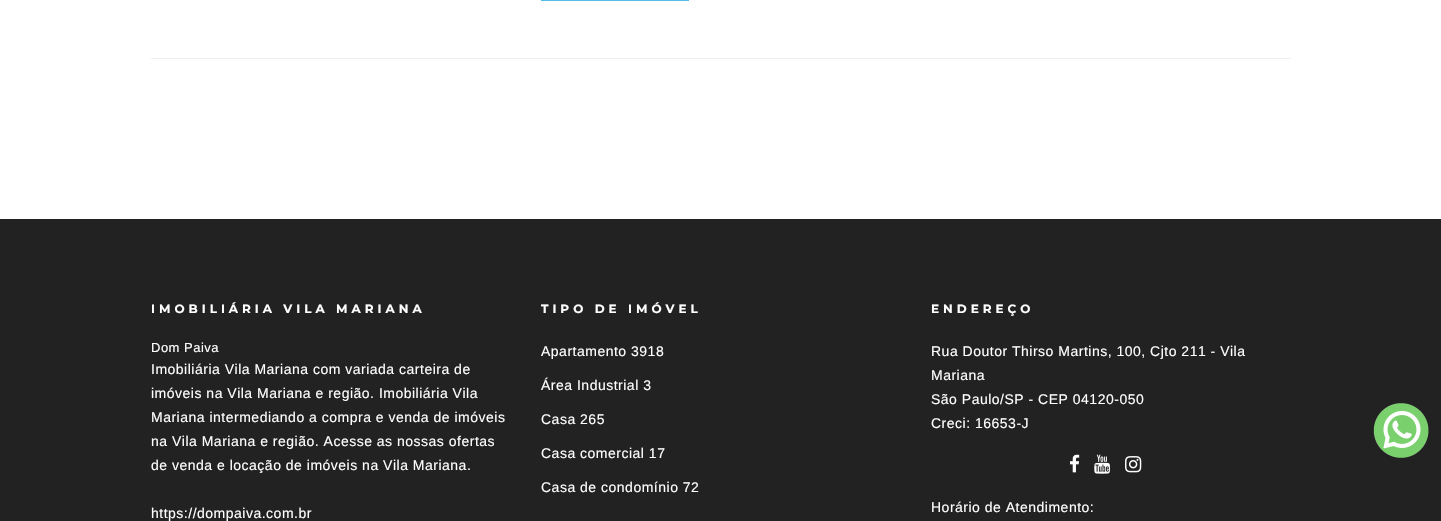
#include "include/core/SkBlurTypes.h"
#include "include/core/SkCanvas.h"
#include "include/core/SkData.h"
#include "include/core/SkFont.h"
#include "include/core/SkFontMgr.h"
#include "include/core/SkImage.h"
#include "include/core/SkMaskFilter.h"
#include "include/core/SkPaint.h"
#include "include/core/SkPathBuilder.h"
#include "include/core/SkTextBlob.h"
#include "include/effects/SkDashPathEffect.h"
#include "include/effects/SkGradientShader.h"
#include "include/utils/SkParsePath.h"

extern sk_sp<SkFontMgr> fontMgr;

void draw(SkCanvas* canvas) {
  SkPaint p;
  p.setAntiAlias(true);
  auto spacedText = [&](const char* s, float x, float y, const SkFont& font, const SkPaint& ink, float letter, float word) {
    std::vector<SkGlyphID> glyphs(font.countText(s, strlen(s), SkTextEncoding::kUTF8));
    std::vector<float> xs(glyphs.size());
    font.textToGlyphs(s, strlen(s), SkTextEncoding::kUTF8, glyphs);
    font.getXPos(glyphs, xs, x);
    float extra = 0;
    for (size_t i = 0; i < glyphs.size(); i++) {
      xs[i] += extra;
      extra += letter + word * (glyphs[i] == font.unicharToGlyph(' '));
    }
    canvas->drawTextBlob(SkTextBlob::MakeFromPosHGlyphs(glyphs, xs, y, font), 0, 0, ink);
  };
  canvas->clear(SK_ColorWHITE);
  p.setColor(SkColorSetRGB(82, 187, 235));
  canvas->drawRect(SkRect::MakeLTRB(541, 0, 689, 1), p);
  p.setColor(SkColorSetRGB(238, 238, 238));
  canvas->drawRect(SkRect::MakeLTRB(151, 58, 1291, 59), p);
  p.setColor(SkColorSetRGB(34, 34, 34));
  canvas->drawRect(SkRect::MakeLTRB(0, 219, 1441, 521), p);
  canvas->drawImageRect(SkImages::DeferredFromEncodedData(SkData::MakeFromFileName("images/1.png")), SkRect::MakeLTRB(1070, 454, 1080, 473), SkSamplingOptions());
  canvas->drawImageRect(SkImages::DeferredFromEncodedData(SkData::MakeFromFileName("images/2.png")), SkRect::MakeLTRB(1094, 454, 1110, 474), SkSamplingOptions());
  canvas->drawImageRect(SkImages::DeferredFromEncodedData(SkData::MakeFromFileName("images/3.png")), SkRect::MakeLTRB(1125, 456, 1142, 473), SkSamplingOptions());
  canvas->drawImageRect(SkImages::DeferredFromEncodedData(SkData::MakeFromFileName("images/4.png")), SkRect::MakeLTRB(1373, 403, 1429, 458), SkSamplingOptions());
  SkFont font1(fontMgr->matchFamilyStyle("Montserrat", SkFontStyle::Bold()), 12);
  font1.setSubpixel(true);
  p.setColor(SK_ColorWHITE);
  spacedText("IMOBILIÁRIA VILA MARIANA", 151, 313, font1, p, 4, 0);
  SkFont font2(fontMgr->matchFamilyStyle("Liberation Sans", SkFontStyle::Normal()), 13);
  font2.setSubpixel(true);
  spacedText("Dom Paiva", 151, 352, font2, p, 0.5f, 0);
  SkFont font3(fontMgr->matchFamilyStyle("Liberation Sans", SkFontStyle::Normal()), 14);
  font3.setSubpixel(true);
  spacedText("Imobiliária Vila Mariana com variada carteira de", 151, 374, font3, p, 0.5f, 0);
  spacedText("imóveis na Vila Mariana e região. Imobiliária Vila", 151, 398, font3, p, 0.5f, 0);
  spacedText("Mariana intermediando a compra e venda de imóveis", 151, 422, font3, p, 0.5f, 0);
  spacedText("na Vila Mariana e região. Acesse as nossas ofertas", 151, 446, font3, p, 0.5f, 0);
  spacedText("de venda e locação de imóveis na Vila Mariana.", 151, 470, font3, p, 0.5f, 0);
  spacedText("https://dompaiva.com.br", 151, 518, font3, p, 0.5f, 0);
  spacedText("TIPO DE IMÓVEL", 541, 313, font1, p, 4, 0);
  spacedText("Apartamento 3918", 541, 356, font3, p, 0.5f, 0);
  spacedText("Área Industrial 3", 541, 390, font3, p, 0.5f, 0);
  spacedText("Casa 265", 541, 424, font3, p, 0.5f, 0);
  spacedText("Casa comercial 17", 541, 458, font3, p, 0.5f, 0);
  spacedText("Casa de condomínio 72", 541, 492, font3, p, 0.5f, 0);
  spacedText("ENDEREÇO", 931, 313, font1, p, 4, 0);
  spacedText("Rua Doutor Thirso Martins, 100, Cjto 211 - Vila", 931, 356, font3, p, 0.5f, 0);
  spacedText("Mariana", 931, 380, font3, p, 0.5f, 0);
  spacedText("São Paulo/SP - CEP 04120-050", 931, 404, font3, p, 0.5f, 0);
  spacedText("Creci: 16653-J", 931, 428, font3, p, 0.5f, 0);
  spacedText("Horário de Atendimento:", 931, 512, font3, p, 0.5f, 0);
}
